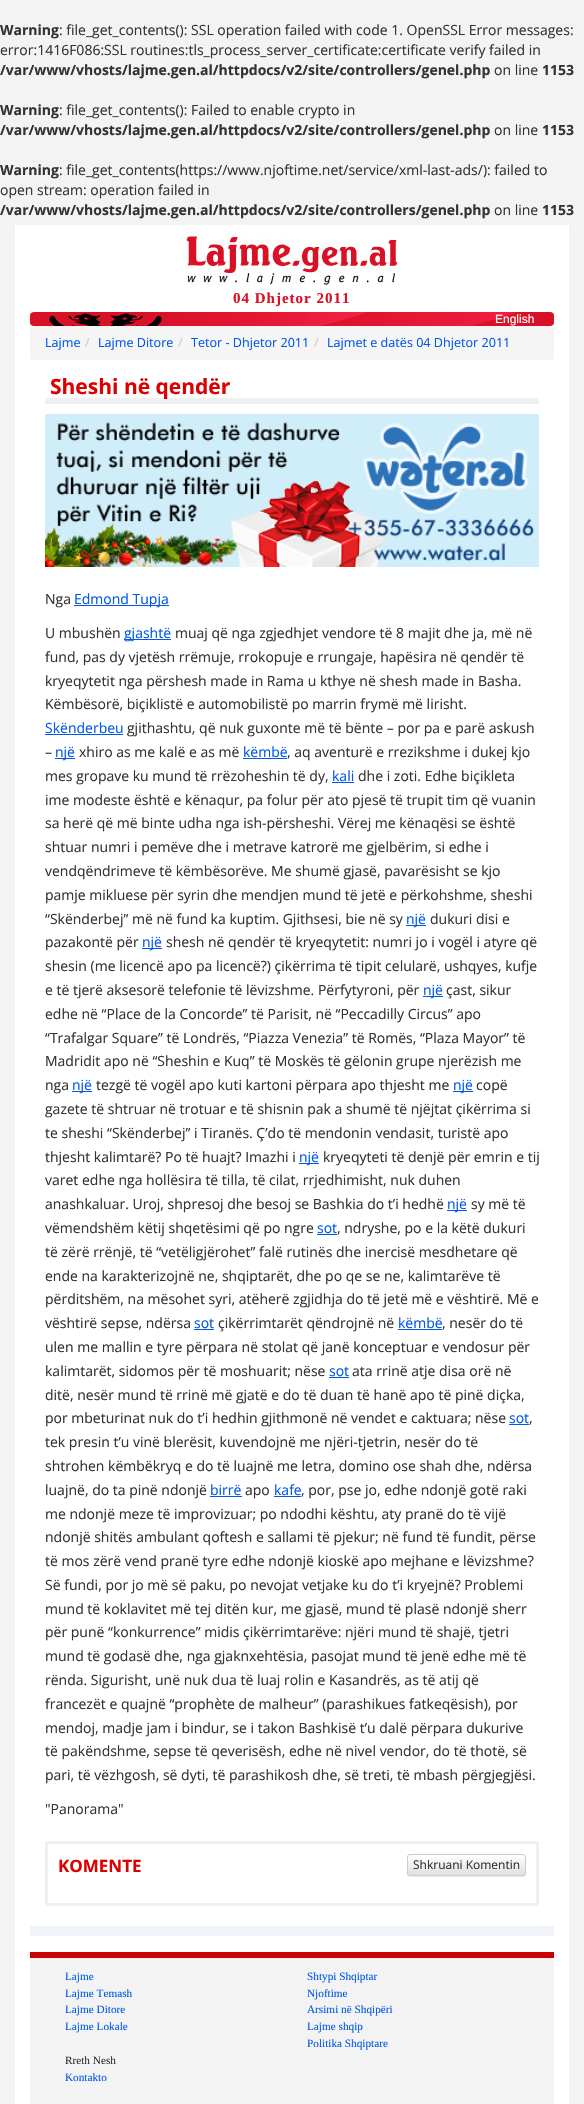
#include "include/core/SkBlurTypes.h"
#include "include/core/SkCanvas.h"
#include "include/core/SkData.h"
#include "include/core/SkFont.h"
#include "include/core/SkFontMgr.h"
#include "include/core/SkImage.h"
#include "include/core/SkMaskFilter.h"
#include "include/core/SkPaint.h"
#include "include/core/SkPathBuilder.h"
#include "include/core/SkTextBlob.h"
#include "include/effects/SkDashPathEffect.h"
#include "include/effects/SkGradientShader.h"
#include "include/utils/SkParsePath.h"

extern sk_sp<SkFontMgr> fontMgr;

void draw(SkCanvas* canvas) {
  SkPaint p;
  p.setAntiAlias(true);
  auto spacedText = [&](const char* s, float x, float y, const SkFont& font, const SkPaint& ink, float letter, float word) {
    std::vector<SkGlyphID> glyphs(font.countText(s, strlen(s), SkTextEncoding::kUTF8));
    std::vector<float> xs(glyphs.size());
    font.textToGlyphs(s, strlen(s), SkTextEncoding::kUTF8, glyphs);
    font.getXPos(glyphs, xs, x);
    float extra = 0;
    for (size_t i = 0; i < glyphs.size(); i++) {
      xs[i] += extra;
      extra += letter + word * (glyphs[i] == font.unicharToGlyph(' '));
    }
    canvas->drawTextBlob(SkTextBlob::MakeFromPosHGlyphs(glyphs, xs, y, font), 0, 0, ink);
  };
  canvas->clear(SkColorSetRGB(243, 243, 243));
  p.setColor(SK_ColorWHITE);
  canvas->drawRect(SkRect::MakeLTRB(15, 225, 569, 2104), p);
  canvas->drawImageRect(SkImages::DeferredFromEncodedData(SkData::MakeFromFileName("images/1.png")), SkRect::MakeLTRB(185, 230, 401, 285), SkSamplingOptions());
  canvas->drawImageRect(SkImages::DeferredFromEncodedData(SkData::MakeFromFileName("images/2.png")), SkRect::MakeLTRB(30, 312, 554, 326), SkSamplingOptions());
  p.setColor(SkColorSetRGB(245, 245, 245));
  canvas->drawRoundRect(SkRect::MakeLTRB(30, 326, 554, 360), 4, 4, p);
  p.setColor(SkColorSetRGB(240, 240, 240));
  canvas->drawRect(SkRect::MakeLTRB(45, 398, 539, 404), p);
  canvas->drawImageRect(SkImages::DeferredFromEncodedData(SkData::MakeFromFileName("images/3.png")), SkRect::MakeLTRB(45, 414, 539, 567), SkSamplingOptions());
  p.setColor(SkColorSetRGB(0, 88, 234));
  canvas->drawRect(SkRect::MakeLTRB(74, 605, 169, 606), p);
  canvas->drawRect(SkRect::MakeLTRB(124, 639, 171, 640), p);
  canvas->drawRect(SkRect::MakeLTRB(45, 734, 123, 735), p);
  canvas->drawRect(SkRect::MakeLTRB(55, 758, 75, 759), p);
  canvas->drawRect(SkRect::MakeLTRB(243, 758, 287, 759), p);
  canvas->drawRect(SkRect::MakeLTRB(332, 782, 354, 783), p);
  canvas->drawRect(SkRect::MakeLTRB(406, 925, 426, 926), p);
  canvas->drawRect(SkRect::MakeLTRB(142, 948, 162, 949), p);
  canvas->drawRect(SkRect::MakeLTRB(423, 996, 443, 997), p);
  canvas->drawRect(SkRect::MakeLTRB(72, 1091, 92, 1092), p);
  canvas->drawRect(SkRect::MakeLTRB(453, 1091, 473, 1092), p);
  canvas->drawRect(SkRect::MakeLTRB(299, 1163, 319, 1164), p);
  canvas->drawRect(SkRect::MakeLTRB(447, 1210, 467, 1211), p);
  canvas->drawRect(SkRect::MakeLTRB(317, 1234, 337, 1235), p);
  canvas->drawRect(SkRect::MakeLTRB(194, 1329, 214, 1330), p);
  canvas->drawRect(SkRect::MakeLTRB(398, 1329, 442, 1330), p);
  canvas->drawRect(SkRect::MakeLTRB(329, 1377, 349, 1378), p);
  canvas->drawRect(SkRect::MakeLTRB(509, 1424, 529, 1425), p);
  canvas->drawRect(SkRect::MakeLTRB(210, 1496, 242, 1497), p);
  canvas->drawRect(SkRect::MakeLTRB(274, 1496, 301, 1497), p);
  p.setStyle(SkPaint::kStroke_Style);
  p.setStrokeWidth(3);
  p.setColor(SkColorSetRGB(240, 240, 240));
  canvas->drawRect(SkRect::MakeLTRB(46.5f, 1842.5f, 537.5f, 1904.5f), p);
  p.setStyle(SkPaint::kFill_Style);
  p.setColor(SkColorSetARGB(18, 0, 0, 0));
  p.setMaskFilter(SkMaskFilter::MakeBlur(kNormal_SkBlurStyle, 0.5f));
  canvas->drawRoundRect(SkRect::MakeLTRB(407, 1855, 526, 1877), 3, 3, p);
  p.setMaskFilter(nullptr);
  canvas->save();
  canvas->clipPath(SkPathBuilder().moveTo(410, 1854).lineTo(523, 1854).cubicTo(524.5f, 1854, 526, 1855.5f, 526, 1857).lineTo(526, 1873).cubicTo(526, 1874.5f, 524.5f, 1876, 523, 1876).lineTo(410, 1876).cubicTo(408.5f, 1876, 407, 1874.5f, 407, 1873).lineTo(407, 1857).cubicTo(407, 1855.5f, 408.5f, 1854, 410, 1854).close().detach(), true);
  {
    const SkColor colors[] = {SK_ColorWHITE, SkColorSetRGB(224, 224, 224)};
    const float stops[] = {0, 1};
    const SkPoint ends[] = {{467, 1855}, {467, 1875}};
    p.setShader(SkGradientShader::MakeLinear(ends, colors, stops, 2, SkTileMode::kClamp));
    p.setAlpha(255);
  }
  canvas->drawRect(SkRect::MakeLTRB(407, 1855, 526, 1875), p);
  canvas->restore();
  p.setStyle(SkPaint::kStroke_Style);
  p.setStrokeWidth(1);
  p.setShader(nullptr);
  p.setColor(SkColorSetRGB(204, 204, 204));
  canvas->drawRoundRect(SkRect::MakeLTRB(407.5f, 1854.5f, 525.5f, 1875.5f), 2.5f, 2.5f, p);
  p.setStyle(SkPaint::kFill_Style);
  p.setColor(SkColorSetRGB(240, 244, 249));
  canvas->drawRect(SkRect::MakeLTRB(30, 1926, 554, 1936), p);
  p.setColor(SkColorSetRGB(243, 243, 243));
  canvas->drawRect(SkRect::MakeLTRB(30, 1958, 554, 2104), p);
  p.setColor(SkColorSetRGB(204, 0, 0));
  canvas->drawRect(SkRect::MakeLTRB(30, 1952, 554, 1958), p);
  SkFont font1(fontMgr->matchFamilyStyle("Open Sans", SkFontStyle::Bold()), 14);
  font1.setSubpixel(true);
  p.setColor(SkColorSetRGB(51, 51, 51));
  canvas->drawString("Warning", 0, 35, font1, p);
  SkFont font2(fontMgr->matchFamilyStyle("Open Sans", SkFontStyle::Normal()), 14);
  font2.setSubpixel(true);
  canvas->drawString(": file_get_contents(): SSL operation failed with code 1. OpenSSL Error messages:", 59, 35, font2, p);
  canvas->drawString("error:1416F086:SSL routines:tls_process_server_certificate:certificate verify failed in", 0, 55, font2, p);
  canvas->drawString("/var/www/vhosts/lajme.gen.al/httpdocs/v2/site/controllers/genel.php", 0, 75, font1, p);
  canvas->drawString("on line", 494, 75, font2, p);
  canvas->drawString("1153", 542, 75, font1, p);
  canvas->drawString("Warning", 0, 115, font1, p);
  canvas->drawString(": file_get_contents(): Failed to enable crypto in", 59, 115, font2, p);
  canvas->drawString("/var/www/vhosts/lajme.gen.al/httpdocs/v2/site/controllers/genel.php", 0, 135, font1, p);
  canvas->drawString("on line", 494, 135, font2, p);
  canvas->drawString("1153", 542, 135, font1, p);
  canvas->drawString("Warning", 0, 175, font1, p);
  canvas->drawString(": file_get_contents(https://www.njoftime.net/service/xml-last-ads/): failed to", 59, 175, font2, p);
  canvas->drawString("open stream: operation failed in", 0, 195, font2, p);
  canvas->drawString("/var/www/vhosts/lajme.gen.al/httpdocs/v2/site/controllers/genel.php", 0, 215, font1, p);
  canvas->drawString("on line", 494, 215, font2, p);
  canvas->drawString("1153", 542, 215, font1, p);
  SkFont font3(fontMgr->matchFamilyStyle("Liberation Serif", SkFontStyle::Bold()), 15);
  font3.setSubpixel(true);
  p.setColor(SkColorSetRGB(216, 17, 38));
  spacedText("04 Dhjetor 2011", 233, 303, font3, p, 1, 0);
  SkFont font4(fontMgr->matchFamilyStyle("Liberation Sans", SkFontStyle::Normal()), 12);
  font4.setSubpixel(true);
  p.setColor(SK_ColorWHITE);
  canvas->drawString("English", 495, 323, font4, p);
  SkFont font5(fontMgr->matchFamilyStyle("Open Sans", SkFontStyle::Normal()), 12.6f);
  font5.setSubpixel(true);
  p.setColor(SkColorSetRGB(0, 88, 234));
  canvas->drawString("Lajme", 45, 347, font5, p);
  p.setColor(SkColorSetRGB(204, 204, 204));
  canvas->drawString("/", 85, 347, font5, p);
  p.setColor(SkColorSetRGB(0, 88, 234));
  canvas->drawString("Lajme Ditore", 98, 347, font5, p);
  p.setColor(SkColorSetRGB(204, 204, 204));
  canvas->drawString("/", 178, 347, font5, p);
  p.setColor(SkColorSetRGB(0, 88, 234));
  canvas->drawString("Tetor - Dhjetor 2011", 191, 347, font5, p);
  p.setColor(SkColorSetRGB(204, 204, 204));
  canvas->drawString("/", 314, 347, font5, p);
  p.setColor(SkColorSetRGB(0, 88, 234));
  canvas->drawString("Lajmet e datës 04 Dhjetor 2011", 327, 347, font5, p);
  SkFont font6(fontMgr->matchFamilyStyle("Open Sans", SkFontStyle::Bold()), 21);
  font6.setSubpixel(true);
  p.setColor(SkColorSetRGB(221, 0, 0));
  canvas->drawString("Sheshi në qendër", 50, 394, font6, p);
  p.setColor(SkColorSetRGB(51, 51, 51));
  canvas->drawString("Nga", 45, 604, font2, p);
  p.setColor(SkColorSetRGB(0, 88, 234));
  canvas->drawString("Edmond Tupja", 74, 604, font2, p);
  p.setColor(SkColorSetRGB(51, 51, 51));
  canvas->drawString("U mbushën", 45, 638, font2, p);
  p.setColor(SkColorSetRGB(0, 88, 234));
  canvas->drawString("gjashtë", 124, 638, font2, p);
  p.setColor(SkColorSetRGB(51, 51, 51));
  canvas->drawString("muaj që nga zgjedhjet vendore të 8 majit dhe ja, më në", 175, 638, font2, p);
  canvas->drawString("fund, pas dy vjetësh rrëmuje, rrokopuje e rrungaje, hapësira në qendër të", 45, 662, font2, p);
  canvas->drawString("kryeqytetit nga përshesh made in Rama u kthye në shesh made in Basha.", 45, 686, font2, p);
  canvas->drawString("Këmbësorë, biçiklistë e automobilistë po marrin frymë më lirisht.", 45, 709, font2, p);
  p.setColor(SkColorSetRGB(0, 88, 234));
  canvas->drawString("Skënderbeu", 45, 733, font2, p);
  p.setColor(SkColorSetRGB(51, 51, 51));
  canvas->drawString("gjithashtu, që nuk guxonte më të bënte – por pa e parë askush", 127, 733, font2, p);
  canvas->drawString("–", 45, 757, font2, p);
  p.setColor(SkColorSetRGB(0, 88, 234));
  canvas->drawString("një", 55, 757, font2, p);
  p.setColor(SkColorSetRGB(51, 51, 51));
  canvas->drawString("xhiro as me kalë e as më", 79, 757, font2, p);
  p.setColor(SkColorSetRGB(0, 88, 234));
  canvas->drawString("këmbë", 243, 757, font2, p);
  p.setColor(SkColorSetRGB(51, 51, 51));
  canvas->drawString(", aq aventurë e rrezikshme i dukej kjo", 287, 757, font2, p);
  canvas->drawString("mes gropave ku mund të rrëzoheshin të dy,", 45, 781, font2, p);
  p.setColor(SkColorSetRGB(0, 88, 234));
  canvas->drawString("kali", 332, 781, font2, p);
  p.setColor(SkColorSetRGB(51, 51, 51));
  canvas->drawString("dhe i zoti. Edhe biçikleta", 358, 781, font2, p);
  canvas->drawString("ime modeste është e kënaqur, pa folur për ato pjesë të trupit tim që vuanin", 45, 805, font2, p);
  canvas->drawString("sa herë që më binte udha nga ish-përsheshi. Vërej me kënaqësi se është", 45, 828, font2, p);
  canvas->drawString("shtuar numri i pemëve dhe i metrave katrorë me gjelbërim, si edhe i", 45, 852, font2, p);
  canvas->drawString("vendqëndrimeve të këmbësorëve. Me shumë gjasë, pavarësisht se kjo", 45, 876, font2, p);
  canvas->drawString("pamje mikluese për syrin dhe mendjen mund të jetë e përkohshme, sheshi", 45, 900, font2, p);
  canvas->drawString("“Skënderbej” më në fund ka kuptim. Gjithsesi, bie në sy", 45, 924, font2, p);
  p.setColor(SkColorSetRGB(0, 88, 234));
  canvas->drawString("një", 406, 924, font2, p);
  p.setColor(SkColorSetRGB(51, 51, 51));
  canvas->drawString("dukuri disi e", 430, 924, font2, p);
  canvas->drawString("pazakontë për", 45, 947, font2, p);
  p.setColor(SkColorSetRGB(0, 88, 234));
  canvas->drawString("një", 142, 947, font2, p);
  p.setColor(SkColorSetRGB(51, 51, 51));
  canvas->drawString("shesh në qendër të kryeqytetit: numri jo i vogël i atyre që", 166, 947, font2, p);
  canvas->drawString("shesin (me licencë apo pa licencë?) çikërrima të tipit celularë, ushqyes, kufje", 45, 971, font2, p);
  canvas->drawString("e të tjerë aksesorë telefonie të lëvizshme. Përfytyroni, për", 45, 995, font2, p);
  p.setColor(SkColorSetRGB(0, 88, 234));
  canvas->drawString("një", 423, 995, font2, p);
  p.setColor(SkColorSetRGB(51, 51, 51));
  canvas->drawString("çast, sikur", 446, 995, font2, p);
  canvas->drawString("edhe në “Place de la Concorde” të Parisit, në “Peccadilly Circus” apo", 45, 1019, font2, p);
  canvas->drawString("“Trafalgar Square” të Londrës, “Piazza Venezia” të Romës, “Plaza Mayor” të", 45, 1043, font2, p);
  canvas->drawString("Madridit apo në “Sheshin e Kuq” të Moskës të gëlonin grupe njerëzish me", 45, 1066, font2, p);
  canvas->drawString("nga", 45, 1090, font2, p);
  p.setColor(SkColorSetRGB(0, 88, 234));
  canvas->drawString("një", 72, 1090, font2, p);
  p.setColor(SkColorSetRGB(51, 51, 51));
  canvas->drawString("tezgë të vogël apo kuti kartoni përpara apo thjesht me", 96, 1090, font2, p);
  p.setColor(SkColorSetRGB(0, 88, 234));
  canvas->drawString("një", 453, 1090, font2, p);
  p.setColor(SkColorSetRGB(51, 51, 51));
  canvas->drawString("copë", 476, 1090, font2, p);
  canvas->drawString("gazete të shtruar në trotuar e të shisnin pak a shumë të njëjtat çikërrima si", 45, 1114, font2, p);
  canvas->drawString("te sheshi “Skënderbej” i Tiranës. Ç’do të mendonin vendasit, turistë apo", 45, 1138, font2, p);
  canvas->drawString("thjesht kalimtarë? Po të huajt? Imazhi i", 45, 1162, font2, p);
  p.setColor(SkColorSetRGB(0, 88, 234));
  canvas->drawString("një", 299, 1162, font2, p);
  p.setColor(SkColorSetRGB(51, 51, 51));
  canvas->drawString("kryeqyteti të denjë për emrin e tij", 323, 1162, font2, p);
  canvas->drawString("varet edhe nga hollësira të tilla, të cilat, rrjedhimisht, nuk duhen", 45, 1185, font2, p);
  canvas->drawString("anashkaluar. Uroj, shpresoj dhe besoj se Bashkia do t’i hedhë", 45, 1209, font2, p);
  p.setColor(SkColorSetRGB(0, 88, 234));
  canvas->drawString("një", 447, 1209, font2, p);
  p.setColor(SkColorSetRGB(51, 51, 51));
  canvas->drawString("sy më të", 471, 1209, font2, p);
  canvas->drawString("vëmendshëm këtij shqetësimi që po ngre", 45, 1233, font2, p);
  p.setColor(SkColorSetRGB(0, 88, 234));
  canvas->drawString("sot", 317, 1233, font2, p);
  p.setColor(SkColorSetRGB(51, 51, 51));
  canvas->drawString(", ndryshe, po e la këtë dukuri", 337, 1233, font2, p);
  canvas->drawString("të zërë rrënjë, të “vetëligjërohet” falë rutinës dhe inercisë mesdhetare që", 45, 1257, font2, p);
  canvas->drawString("ende na karakterizojnë ne, shqiptarët, dhe po qe se ne, kalimtarëve të", 45, 1281, font2, p);
  canvas->drawString("përditshëm, na mësohet syri, atëherë zgjidhja do të jetë më e vështirë. Më e", 45, 1304, font2, p);
  canvas->drawString("vështirë sepse, ndërsa", 45, 1328, font2, p);
  p.setColor(SkColorSetRGB(0, 88, 234));
  canvas->drawString("sot", 194, 1328, font2, p);
  p.setColor(SkColorSetRGB(51, 51, 51));
  canvas->drawString("çikërrimtarët qëndrojnë në", 218, 1328, font2, p);
  p.setColor(SkColorSetRGB(0, 88, 234));
  canvas->drawString("këmbë", 398, 1328, font2, p);
  p.setColor(SkColorSetRGB(51, 51, 51));
  canvas->drawString(", nesër do të", 442, 1328, font2, p);
  canvas->drawString("ulen me mallin e tyre përpara në stolat që janë konceptuar e vendosur për", 45, 1352, font2, p);
  canvas->drawString("kalimtarët, sidomos për të moshuarit; nëse", 45, 1376, font2, p);
  p.setColor(SkColorSetRGB(0, 88, 234));
  canvas->drawString("sot", 329, 1376, font2, p);
  p.setColor(SkColorSetRGB(51, 51, 51));
  canvas->drawString("ata rrinë atje disa orë në", 352, 1376, font2, p);
  canvas->drawString("ditë, nesër mund të rrinë më gjatë e do të duan të hanë apo të pinë diçka,", 45, 1400, font2, p);
  canvas->drawString("por mbeturinat nuk do t’i hedhin gjithmonë në vendet e caktuara; nëse", 45, 1423, font2, p);
  p.setColor(SkColorSetRGB(0, 88, 234));
  canvas->drawString("sot", 509, 1423, font2, p);
  p.setColor(SkColorSetRGB(51, 51, 51));
  canvas->drawString(",", 529, 1423, font2, p);
  canvas->drawString("tek presin t’u vinë blerësit, kuvendojnë me njëri-tjetrin, nesër do të", 45, 1447, font2, p);
  canvas->drawString("shtrohen këmbëkryq e do të luajnë me letra, domino ose shah dhe, ndërsa", 45, 1471, font2, p);
  canvas->drawString("luajnë, do ta pinë ndonjë", 45, 1495, font2, p);
  p.setColor(SkColorSetRGB(0, 88, 234));
  canvas->drawString("birrë", 210, 1495, font2, p);
  p.setColor(SkColorSetRGB(51, 51, 51));
  canvas->drawString("apo", 245, 1495, font2, p);
  p.setColor(SkColorSetRGB(0, 88, 234));
  canvas->drawString("kafe", 274, 1495, font2, p);
  p.setColor(SkColorSetRGB(51, 51, 51));
  canvas->drawString(", por, pse jo, edhe ndonjë gotë raki", 301, 1495, font2, p);
  canvas->drawString("me ndonjë meze të improvizuar; po ndodhi kështu, aty pranë do të vijë", 45, 1519, font2, p);
  canvas->drawString("ndonjë shitës ambulant qoftesh e sallami të pjekur; në fund të fundit, përse", 45, 1542, font2, p);
  canvas->drawString("të mos zërë vend pranë tyre edhe ndonjë kioskë apo mejhane e lëvizshme?", 45, 1566, font2, p);
  canvas->drawString("Së fundi, por jo më së paku, po nevojat vetjake ku do t’i kryejnë? Problemi", 45, 1590, font2, p);
  canvas->drawString("mund të koklavitet më tej ditën kur, me gjasë, mund të plasë ndonjë sherr", 45, 1614, font2, p);
  canvas->drawString("për punë “konkurrence” midis çikërrimtarëve: njëri mund të shajë, tjetri", 45, 1637, font2, p);
  canvas->drawString("mund të godasë dhe, nga gjaknxehtësia, pasojat mund të jenë edhe më të", 45, 1661, font2, p);
  canvas->drawString("rënda. Sigurisht, unë nuk dua të luaj rolin e Kasandrës, as të atij që", 45, 1685, font2, p);
  canvas->drawString("francezët e quajnë “prophète de malheur” (parashikues fatkeqësish), por", 45, 1709, font2, p);
  canvas->drawString("mendoj, madje jam i bindur, se i takon Bashkisë t’u dalë përpara dukurive", 45, 1733, font2, p);
  canvas->drawString("të pakëndshme, sepse të qeverisësh, edhe në nivel vendor, do të thotë, së", 45, 1756, font2, p);
  canvas->drawString("pari, të vëzhgosh, së dyti, të parashikosh dhe, së treti, të mbash përgjegjësi.", 45, 1780, font2, p);
  canvas->drawString("\"Panorama\"", 45, 1814, font2, p);
  SkFont font7(fontMgr->matchFamilyStyle("Open Sans", SkFontStyle::Bold()), 17);
  font7.setSubpixel(true);
  p.setColor(SkColorSetRGB(221, 0, 0));
  canvas->drawString("KOMENTE", 58, 1872, font7, p);
  SkFont font8(fontMgr->matchFamilyStyle("Open Sans", SkFontStyle::Normal()), 12);
  font8.setSubpixel(true);
  p.setColor(SkColorSetRGB(51, 51, 51));
  canvas->drawString("Shkruani Komentin", 413, 1869, font8, p);
  SkFont font9(fontMgr->matchFamilyStyle("Liberation Serif", SkFontStyle::Normal()), 11.25f);
  font9.setSubpixel(true);
  p.setColor(SkColorSetRGB(0, 88, 234));
  canvas->drawString("Lajme", 65, 1980, font9, p);
  canvas->drawString("Lajme Temash", 65, 1997, font9, p);
  canvas->drawString("Lajme Ditore", 65, 2013, font9, p);
  canvas->drawString("Lajme Lokale", 65, 2030, font9, p);
  canvas->drawString("Shtypi Shqiptar", 307, 1980, font9, p);
  canvas->drawString("Njoftime", 307, 1997, font9, p);
  canvas->drawString("Arsimi në Shqipëri", 307, 2013, font9, p);
  canvas->drawString("Lajme shqip", 307, 2030, font9, p);
  canvas->drawString("Politika Shqiptare", 307, 2047, font9, p);
  p.setColor(SkColorSetRGB(51, 51, 51));
  canvas->drawString("Rreth Nesh", 65, 2064, font9, p);
  p.setColor(SkColorSetRGB(0, 88, 234));
  canvas->drawString("Kontakto", 65, 2081, font9, p);
}
